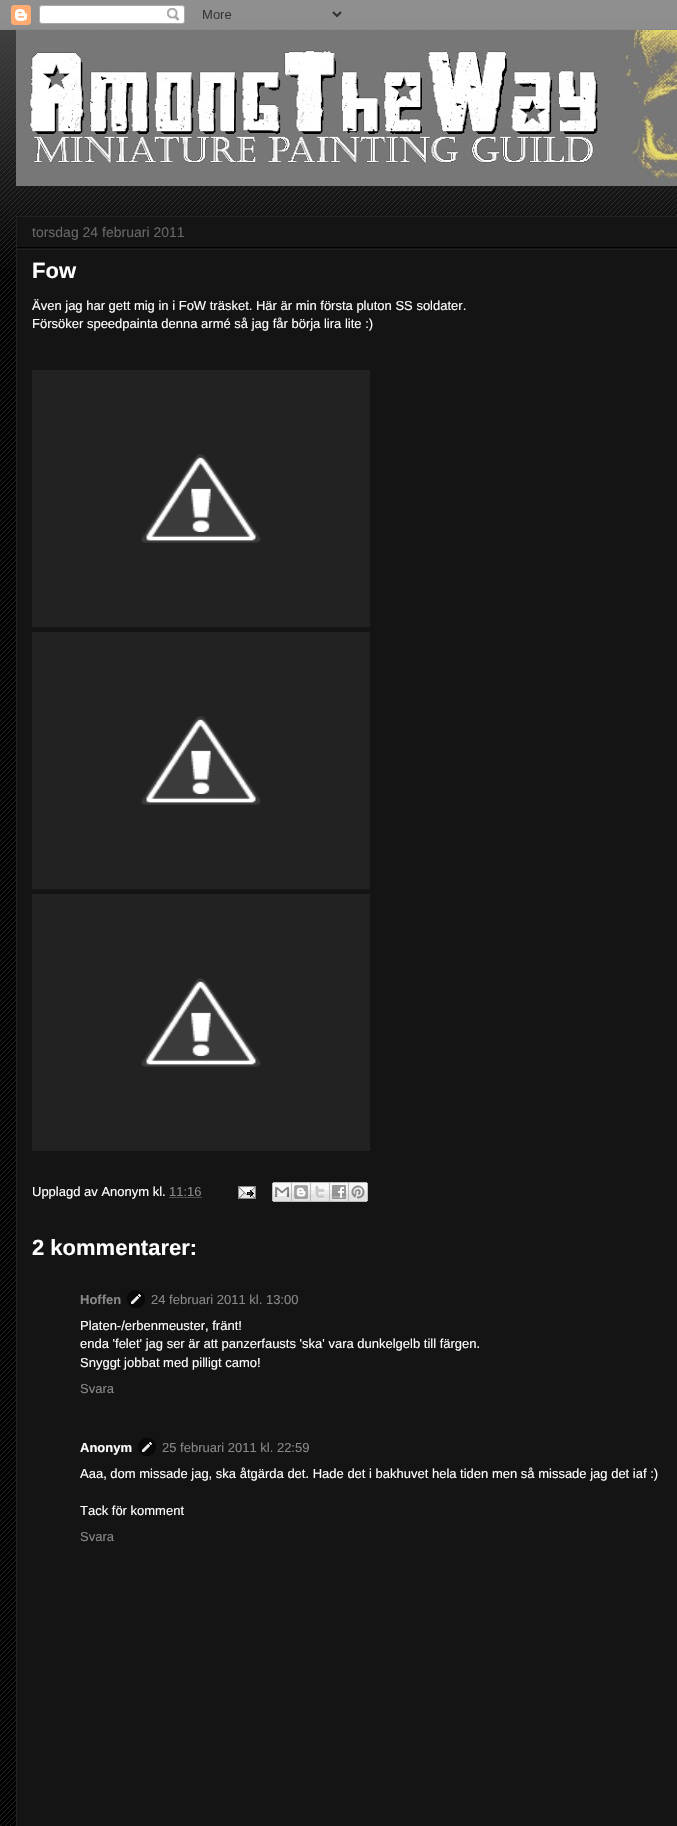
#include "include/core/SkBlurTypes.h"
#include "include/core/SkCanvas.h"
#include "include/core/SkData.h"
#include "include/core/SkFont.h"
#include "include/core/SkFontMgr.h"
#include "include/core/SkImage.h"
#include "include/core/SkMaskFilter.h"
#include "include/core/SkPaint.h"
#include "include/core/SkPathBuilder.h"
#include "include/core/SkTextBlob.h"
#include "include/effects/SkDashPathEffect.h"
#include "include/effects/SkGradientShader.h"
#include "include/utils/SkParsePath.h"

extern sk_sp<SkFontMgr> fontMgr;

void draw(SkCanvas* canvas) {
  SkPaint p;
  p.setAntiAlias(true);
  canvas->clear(SK_ColorBLACK);
  canvas->drawImageRect(SkImages::DeferredFromEncodedData(SkData::MakeFromFileName("images/1.png")), SkRect::MakeLTRB(0, 13, 677, 1826), SkSamplingOptions());
  canvas->drawImageRect(SkImages::DeferredFromEncodedData(SkData::MakeFromFileName("images/2.png")), SkRect::MakeLTRB(0, 0, 677, 268), SkSamplingOptions());
  canvas->drawImageRect(SkImages::DeferredFromEncodedData(SkData::MakeFromFileName("images/3.png")), SkRect::MakeLTRB(0, 0, 677, 30), SkSamplingOptions());
  canvas->drawImageRect(SkImages::DeferredFromEncodedData(SkData::MakeFromFileName("images/4.png")), SkRect::MakeLTRB(16, 30, 677, 186), SkSamplingOptions());
  p.setColor(SkColorSetRGB(20, 20, 20));
  canvas->drawRect(SkRect::MakeLTRB(16.5f, 216.5f, 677.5f, 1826.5f), p);
  p.setStyle(SkPaint::kStroke_Style);
  p.setStrokeWidth(1);
  p.setColor(SkColorSetRGB(34, 34, 34));
  canvas->drawRect(SkRect::MakeLTRB(16.5f, 216.5f, 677.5f, 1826.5f), p);
  p.setStyle(SkPaint::kFill_Style);
  p.setColor(SK_ColorBLACK);
  canvas->drawRect(SkRect::MakeLTRB(17, 247, 677, 248), p);
  p.setColor(SkColorSetRGB(34, 34, 34));
  canvas->drawRect(SkRect::MakeLTRB(17, 249, 677, 250), p);
  canvas->drawRect(SkRect::MakeLTRB(32, 370, 370, 627), p);
  canvas->drawImageRect(SkImages::DeferredFromEncodedData(SkData::MakeFromFileName("images/5.png")), SkRect::MakeLTRB(141, 454, 261, 543), SkSamplingOptions());
  canvas->drawRect(SkRect::MakeLTRB(32, 632, 370, 889), p);
  canvas->drawImageRect(SkImages::DeferredFromEncodedData(SkData::MakeFromFileName("images/5.png")), SkRect::MakeLTRB(141, 716, 261, 805), SkSamplingOptions());
  canvas->drawRect(SkRect::MakeLTRB(32, 894, 370, 1151), p);
  canvas->drawImageRect(SkImages::DeferredFromEncodedData(SkData::MakeFromFileName("images/5.png")), SkRect::MakeLTRB(141, 978, 261, 1067), SkSamplingOptions());
  p.setStyle(SkPaint::kStroke_Style);
  p.setColor(SkColorSetRGB(136, 136, 136));
  p.setPathEffect(SkDashPathEffect::Make({{1, 1}}, 0));
  canvas->drawPath(SkPathBuilder().moveTo(169.5f, 1197.5f).lineTo(202, 1197.5f).detach(), p);
  p.setPathEffect(nullptr);
  canvas->drawImageRect(SkImages::DeferredFromEncodedData(SkData::MakeFromFileName("images/6.png")), SkRect::MakeLTRB(238, 1186, 256, 1199), SkSamplingOptions());
  canvas->drawImageRect(SkImages::DeferredFromEncodedData(SkData::MakeFromFileName("images/7.png")), SkRect::MakeLTRB(272, 1182, 292, 1202), SkSamplingOptions());
  canvas->drawImageRect(SkImages::DeferredFromEncodedData(SkData::MakeFromFileName("images/8.png")), SkRect::MakeLTRB(292, 1182, 311, 1202), SkSamplingOptions());
  canvas->drawImageRect(SkImages::DeferredFromEncodedData(SkData::MakeFromFileName("images/9.png")), SkRect::MakeLTRB(311, 1182, 330, 1202), SkSamplingOptions());
  canvas->drawImageRect(SkImages::DeferredFromEncodedData(SkData::MakeFromFileName("images/10.png")), SkRect::MakeLTRB(330, 1182, 349, 1202), SkSamplingOptions());
  canvas->drawImageRect(SkImages::DeferredFromEncodedData(SkData::MakeFromFileName("images/11.png")), SkRect::MakeLTRB(349, 1182, 368, 1202), SkSamplingOptions());
  canvas->drawImageRect(SkImages::DeferredFromEncodedData(SkData::MakeFromFileName("images/12.png")), SkRect::MakeLTRB(127, 1290, 145, 1308), SkSamplingOptions());
  canvas->drawImageRect(SkImages::DeferredFromEncodedData(SkData::MakeFromFileName("images/12.png")), SkRect::MakeLTRB(138, 1438, 156, 1456), SkSamplingOptions());
  SkFont font1(fontMgr->matchFamilyStyle("Liberation Sans", SkFontStyle::Normal()), 14);
  font1.setSubpixel(true);
  p.setStyle(SkPaint::kFill_Style);
  p.setColor(SkColorSetRGB(102, 102, 102));
  canvas->drawString("torsdag 24 februari 2011", 32, 237, font1, p);
  SkFont font2(fontMgr->matchFamilyStyle("Liberation Sans", SkFontStyle::Bold()), 22);
  font2.setSubpixel(true);
  p.setColor(SK_ColorWHITE);
  canvas->drawString("Fow", 32, 278, font2, p);
  SkFont font3(fontMgr->matchFamilyStyle("Liberation Sans", SkFontStyle::Normal()), 13);
  font3.setSubpixel(true);
  canvas->drawString("Även jag har gett mig in i FoW träsket. Här är min första pluton SS soldater.", 32, 310, font3, p);
  canvas->drawString("Försöker speedpainta denna armé så jag får börja lira lite :)", 32, 328, font3, p);
  canvas->drawString("Upplagd av Anonym kl.", 32, 1196, font3, p);
  p.setColor(SkColorSetRGB(136, 136, 136));
  canvas->drawString("11:16", 169, 1196, font3, p);
  p.setColor(SK_ColorWHITE);
  canvas->drawString("2 kommentarer:", 32, 1255, font2, p);
  SkFont font4(fontMgr->matchFamilyStyle("Liberation Sans", SkFontStyle::Bold()), 13);
  font4.setSubpixel(true);
  p.setColor(SkColorSetRGB(136, 136, 136));
  canvas->drawString("Hoffen", 80, 1304, font4, p);
  canvas->drawString("24 februari 2011 kl. 13:00", 151, 1304, font3, p);
  p.setColor(SK_ColorWHITE);
  canvas->drawString("Platen-/erbenmeuster, fränt!", 80, 1330, font3, p);
  canvas->drawString("enda 'felet' jag ser är att panzerfausts 'ska' vara dunkelgelb till färgen.", 80, 1348, font3, p);
  canvas->drawString("Snyggt jobbat med pilligt camo!", 80, 1367, font3, p);
  p.setColor(SkColorSetRGB(136, 136, 136));
  canvas->drawString("Svara", 80, 1393, font3, p);
  p.setColor(SK_ColorWHITE);
  canvas->drawString("Anonym", 80, 1452, font4, p);
  p.setColor(SkColorSetRGB(136, 136, 136));
  canvas->drawString("25 februari 2011 kl. 22:59", 162, 1452, font3, p);
  p.setColor(SK_ColorWHITE);
  canvas->drawString("Aaa, dom missade jag, ska åtgärda det. Hade det i bakhuvet hela tiden men så missade jag det iaf :)", 80, 1478, font3, p);
  canvas->drawString("Tack för komment", 80, 1515, font3, p);
  p.setColor(SkColorSetRGB(136, 136, 136));
  canvas->drawString("Svara", 80, 1541, font3, p);
}
